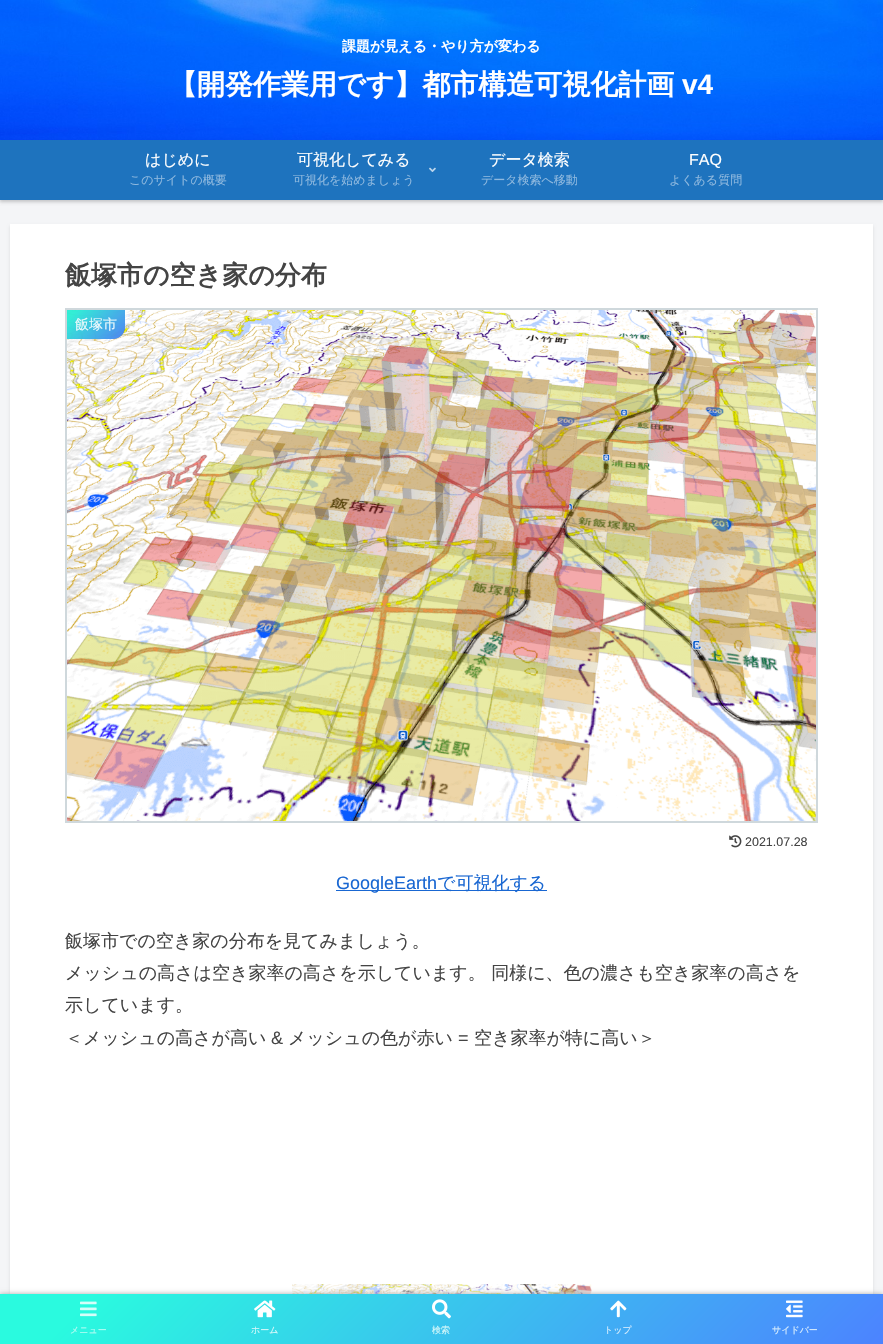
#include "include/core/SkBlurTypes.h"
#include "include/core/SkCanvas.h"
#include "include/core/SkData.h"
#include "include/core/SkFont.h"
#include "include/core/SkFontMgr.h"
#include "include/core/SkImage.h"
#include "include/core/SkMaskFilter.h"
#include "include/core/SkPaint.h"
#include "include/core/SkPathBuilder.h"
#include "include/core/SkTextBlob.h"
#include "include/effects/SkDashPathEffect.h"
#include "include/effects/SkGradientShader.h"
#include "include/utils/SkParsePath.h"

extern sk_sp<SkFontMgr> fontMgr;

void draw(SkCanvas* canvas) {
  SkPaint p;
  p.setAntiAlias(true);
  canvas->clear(SkColorSetRGB(244, 245, 247));
  p.setColor(SkColorSetARGB(26, 0, 0, 0));
  p.setMaskFilter(SkMaskFilter::MakeBlur(kNormal_SkBlurStyle, 1.5f));
  canvas->drawRect(SkRect::MakeLTRB(0, 0, 883, 202), p);
  p.setMaskFilter(nullptr);
  canvas->drawImageRect(SkImages::DeferredFromEncodedData(SkData::MakeFromFileName("images/1.png")), SkRect::MakeLTRB(0, 0, 883, 140), SkSamplingOptions());
  p.setMaskFilter(SkMaskFilter::MakeBlur(kNormal_SkBlurStyle, 1.5f));
  canvas->drawRect(SkRect::MakeLTRB(0, 142, 883, 202), p);
  p.setMaskFilter(nullptr);
  p.setColor(SkColorSetRGB(30, 115, 190));
  canvas->drawRect(SkRect::MakeLTRB(0, 140, 883, 200), p);
  canvas->drawImageRect(SkImages::DeferredFromEncodedData(SkData::MakeFromFileName("images/2.png")), SkRect::MakeLTRB(429, 167, 436, 172), SkSamplingOptions());
  p.setColor(SkColorSetARGB(26, 0, 0, 0));
  p.setMaskFilter(SkMaskFilter::MakeBlur(kNormal_SkBlurStyle, 1.5f));
  canvas->drawRect(SkRect::MakeLTRB(10, 226, 873, 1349), p);
  p.setMaskFilter(nullptr);
  p.setColor(SK_ColorWHITE);
  canvas->drawRect(SkRect::MakeLTRB(10, 224, 873, 1294), p);
  p.setStyle(SkPaint::kStroke_Style);
  p.setStrokeWidth(2);
  p.setColor(SkColorSetRGB(207, 216, 220));
  canvas->drawRect(SkRect::MakeLTRB(66, 309, 817, 822), p);
  canvas->drawImageRect(SkImages::DeferredFromEncodedData(SkData::MakeFromFileName("images/3.png")), SkRect::MakeLTRB(67, 310, 816, 821), SkSamplingOptions());
  p.setStyle(SkPaint::kFill_Style);
  p.setColor(SkColorSetARGB(161, 51, 51, 51));
  canvas->drawPath(SkPathBuilder().moveTo(67, 310).lineTo(125, 310).lineTo(125, 327).cubicTo(125, 333.5f, 119.5f, 339, 113, 339).lineTo(67, 339).close().detach(), p);
  {
    const SkColor colors[] = {SkColorSetARGB(230, 42, 250, 223), SkColorSetARGB(230, 76, 131, 255)};
    const float stops[] = {0.1f, 1};
    const SkPoint ends[] = {{74, 303}, {118, 346}};
    p.setShader(SkGradientShader::MakeLinear(ends, colors, stops, 2, SkTileMode::kClamp));
    p.setAlpha(255);
  }
  canvas->drawPath(SkPathBuilder().moveTo(67, 310).lineTo(125, 310).lineTo(125, 327).cubicTo(125, 333.5f, 119.5f, 339, 113, 339).lineTo(67, 339).close().detach(), p);
  canvas->drawImageRect(SkImages::DeferredFromEncodedData(SkData::MakeFromFileName("images/4.png")), SkRect::MakeLTRB(729, 835, 742, 848), SkSamplingOptions());
  p.setShader(nullptr);
  p.setColor(SkColorSetRGB(25, 103, 210));
  canvas->drawRect(SkRect::MakeLTRB(336, 890, 547, 891), p);
  canvas->drawImageRect(SkImages::DeferredFromEncodedData(SkData::MakeFromFileName("images/5.png")), SkRect::MakeLTRB(292, 1284, 592, 1294), SkSamplingOptions());
  p.setColor(SkColorSetRGB(169, 169, 169));
  p.setMaskFilter(SkMaskFilter::MakeBlur(kNormal_SkBlurStyle, 2.5f));
  canvas->drawRect(SkRect::MakeLTRB(0, 1294, 883, 1344), p);
  p.setMaskFilter(nullptr);
  {
    const SkColor colors[] = {SkColorSetRGB(42, 250, 223), SkColorSetRGB(76, 131, 255)};
    const float stops[] = {0.1f, 1};
    const SkPoint ends[] = {{208, 1086}, {675, 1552}};
    p.setShader(SkGradientShader::MakeLinear(ends, colors, stops, 2, SkTileMode::kClamp));
    p.setAlpha(255);
  }
  canvas->drawRect(SkRect::MakeLTRB(0, 1294, 883, 1344), p);
  canvas->drawImageRect(SkImages::DeferredFromEncodedData(SkData::MakeFromFileName("images/6.png")), SkRect::MakeLTRB(80, 1301, 97, 1317), SkSamplingOptions());
  canvas->drawImageRect(SkImages::DeferredFromEncodedData(SkData::MakeFromFileName("images/7.png")), SkRect::MakeLTRB(254, 1300, 276, 1318), SkSamplingOptions());
  canvas->drawImageRect(SkImages::DeferredFromEncodedData(SkData::MakeFromFileName("images/8.png")), SkRect::MakeLTRB(432, 1299, 451, 1319), SkSamplingOptions());
  canvas->drawImageRect(SkImages::DeferredFromEncodedData(SkData::MakeFromFileName("images/9.png")), SkRect::MakeLTRB(610, 1300, 627, 1318), SkSamplingOptions());
  canvas->drawImageRect(SkImages::DeferredFromEncodedData(SkData::MakeFromFileName("images/10.png")), SkRect::MakeLTRB(786, 1300, 803, 1318), SkSamplingOptions());
  SkFont font1(fontMgr->matchFamilyStyle("WenQuanYi Zen Hei", SkFontStyle::Bold()), 14);
  font1.setSubpixel(true);
  p.setShader(nullptr);
  p.setColor(SK_ColorWHITE);
  canvas->drawString("課題が見える・やり方が変わる", 342, 51, font1, p);
  SkFont font2(fontMgr->matchFamilyStyle("WenQuanYi Zen Hei", SkFontStyle::Bold()), 28);
  font2.setSubpixel(true);
  canvas->drawString("【開発作業用です】都市構造可視化計画", 169, 94, font2, p);
  SkFont font3(fontMgr->matchFamilyStyle("Liberation Sans", SkFontStyle::Bold()), 28);
  font3.setSubpixel(true);
  canvas->drawString("v4", 682, 94, font3, p);
  SkFont font4(fontMgr->matchFamilyStyle("WenQuanYi Zen Hei", SkFontStyle(500, SkFontStyle::kNormal_Width, SkFontStyle::kUpright_Slant)), 16);
  font4.setSubpixel(true);
  canvas->drawString("はじめに", 145, 165, font4, p);
  SkFont font5(fontMgr->matchFamilyStyle("WenQuanYi Zen Hei", SkFontStyle(500, SkFontStyle::kNormal_Width, SkFontStyle::kUpright_Slant)), 12);
  font5.setSubpixel(true);
  p.setColor(SkColorSetRGB(143, 185, 223));
  canvas->drawString("このサイトの概要", 129, 184, font5, p);
  p.setColor(SK_ColorWHITE);
  canvas->drawString("可視化してみる", 297, 165, font4, p);
  p.setColor(SkColorSetRGB(143, 185, 223));
  canvas->drawString("可視化を始めましょう", 293, 184, font5, p);
  p.setColor(SK_ColorWHITE);
  canvas->drawString("データ検索", 489, 165, font4, p);
  p.setColor(SkColorSetRGB(143, 185, 223));
  canvas->drawString("データ検索へ移動", 481, 184, font5, p);
  SkFont font6(fontMgr->matchFamilyStyle("Liberation Sans", SkFontStyle::Normal()), 16);
  font6.setSubpixel(true);
  p.setColor(SK_ColorWHITE);
  canvas->drawString("FAQ", 689, 165, font6, p);
  p.setColor(SkColorSetRGB(143, 185, 223));
  canvas->drawString("よくある質問", 669, 184, font5, p);
  SkFont font7(fontMgr->matchFamilyStyle("WenQuanYi Zen Hei", SkFontStyle::Bold()), 26);
  font7.setSubpixel(true);
  p.setColor(SkColorSetRGB(68, 68, 68));
  canvas->drawString("飯塚市の空き家の分布", 65, 284, font7, p);
  SkFont font8(fontMgr->matchFamilyStyle("WenQuanYi Zen Hei", SkFontStyle(500, SkFontStyle::kNormal_Width, SkFontStyle::kUpright_Slant)), 14);
  font8.setSubpixel(true);
  p.setColor(SkColorSetRGB(236, 249, 252));
  canvas->drawString("飯塚市", 75, 329, font8, p);
  SkFont font9(fontMgr->matchFamilyStyle("Liberation Sans", SkFontStyle::Normal()), 12.5f);
  font9.setSubpixel(true);
  p.setColor(SkColorSetRGB(68, 68, 68));
  canvas->drawString("2021.07.28", 745, 846, font9, p);
  SkFont font10(fontMgr->matchFamilyStyle("Liberation Sans", SkFontStyle::Normal()), 18);
  font10.setSubpixel(true);
  p.setColor(SkColorSetRGB(25, 103, 210));
  canvas->drawString("GoogleEarth", 336, 889, font10, p);
  SkFont font11(fontMgr->matchFamilyStyle("WenQuanYi Zen Hei", SkFontStyle(500, SkFontStyle::kNormal_Width, SkFontStyle::kUpright_Slant)), 18);
  font11.setSubpixel(true);
  canvas->drawString("で可視化する", 437, 889, font11, p);
  p.setColor(SkColorSetRGB(68, 68, 68));
  canvas->drawString("飯塚市での空き家の分布を見てみましょう。", 65, 947, font11, p);
  canvas->drawString("メッシュの高さは空き家率の高さを示しています。 同様に、色の濃さも空き家率の高さを", 65, 979, font11, p);
  canvas->drawString("示しています。", 65, 1011, font11, p);
  canvas->drawString("＜メッシュの高さが高い", 65, 1044, font11, p);
  canvas->drawString("&", 271, 1044, font10, p);
  canvas->drawString("メッシュの色が赤い", 288, 1044, font11, p);
  canvas->drawString("=", 458, 1044, font10, p);
  canvas->drawString("空き家率が特に高い＞", 474, 1044, font11, p);
  SkFont font12(fontMgr->matchFamilyStyle("WenQuanYi Zen Hei", SkFontStyle(500, SkFontStyle::kNormal_Width, SkFontStyle::kUpright_Slant)), 9);
  font12.setSubpixel(true);
  p.setColor(SkColorSetRGB(179, 252, 244));
  canvas->drawString("メニュー", 70, 1333, font12, p);
  p.setColor(SkColorSetRGB(214, 248, 250));
  canvas->drawString("ホーム", 251, 1333, font12, p);
  canvas->drawString("検索", 432, 1333, font12, p);
  p.setColor(SkColorSetRGB(217, 238, 253));
  canvas->drawString("トップ", 604, 1333, font12, p);
  canvas->drawString("サイドバー", 772, 1333, font12, p);
}
